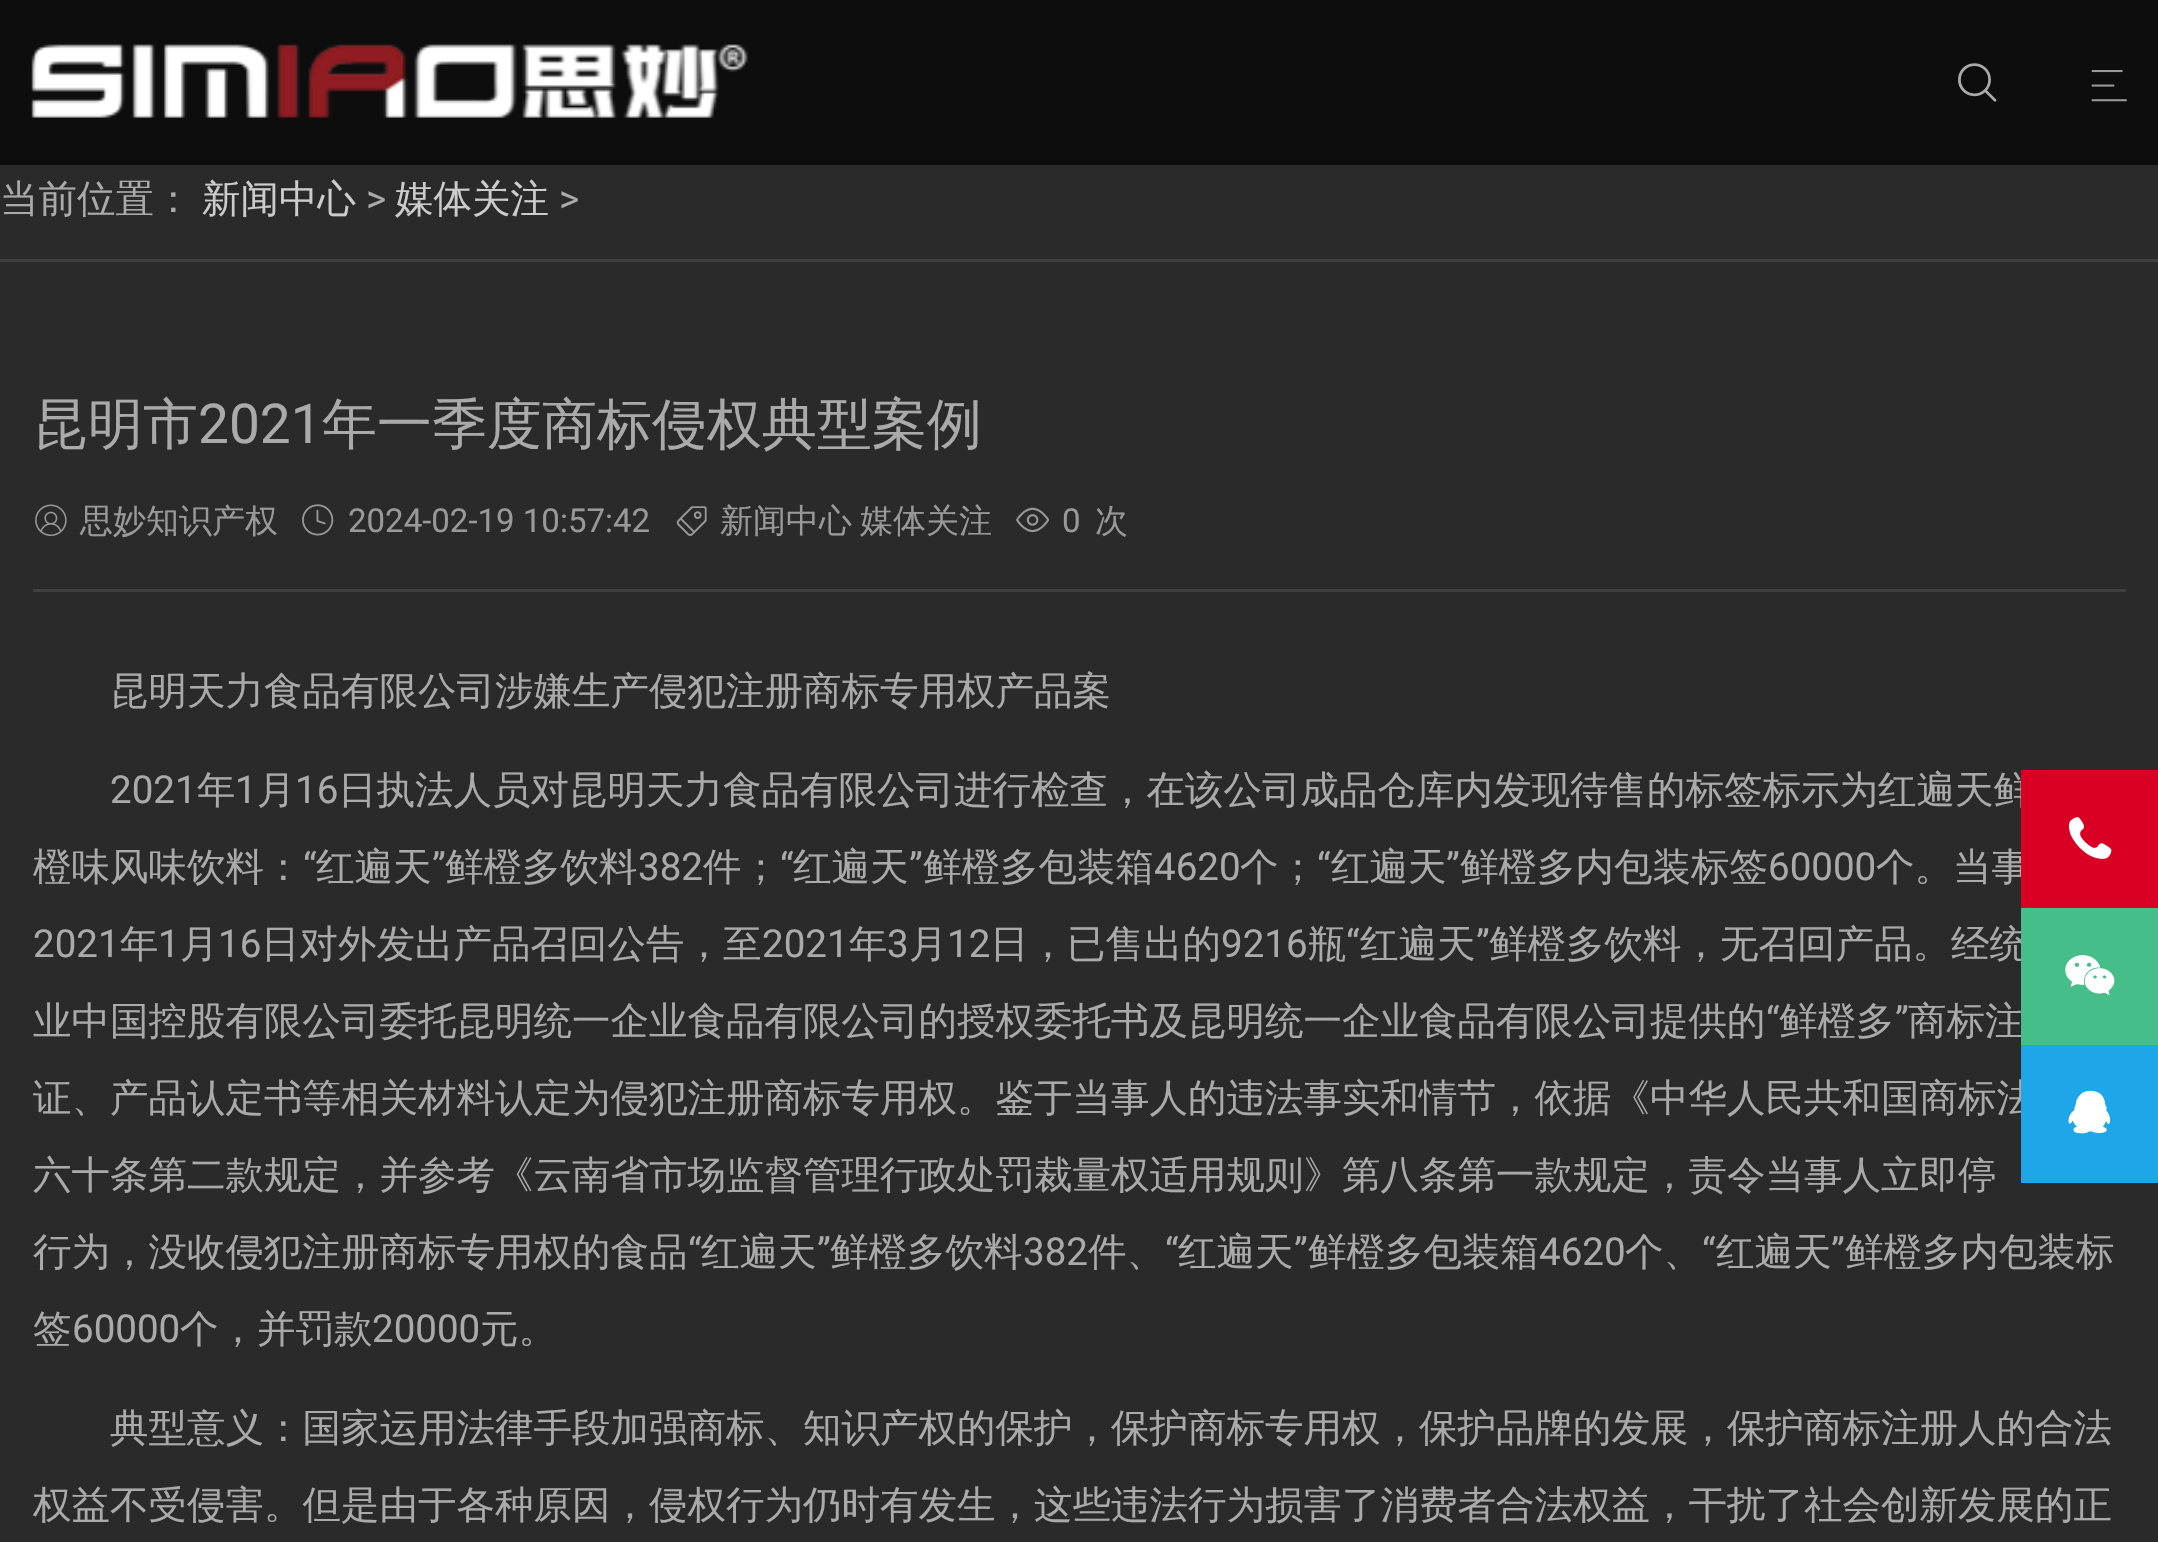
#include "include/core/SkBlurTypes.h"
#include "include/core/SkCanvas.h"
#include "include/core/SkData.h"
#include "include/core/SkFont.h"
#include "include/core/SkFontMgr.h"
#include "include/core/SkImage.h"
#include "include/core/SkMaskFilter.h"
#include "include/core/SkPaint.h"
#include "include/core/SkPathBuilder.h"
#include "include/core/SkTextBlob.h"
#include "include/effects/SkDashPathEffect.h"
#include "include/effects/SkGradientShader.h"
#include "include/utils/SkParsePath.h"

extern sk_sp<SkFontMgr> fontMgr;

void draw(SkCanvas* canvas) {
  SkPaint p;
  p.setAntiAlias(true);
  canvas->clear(SkColorSetRGB(42, 42, 42));
  p.setColor(SkColorSetRGB(13, 13, 13));
  canvas->drawRect(SkRect::MakeLTRB(0, 0, 2158, 165), p);
  canvas->drawImageRect(SkImages::DeferredFromEncodedData(SkData::MakeFromFileName("images/1.png")), SkRect::MakeLTRB(31, 44, 748, 118), SkSamplingOptions());
  canvas->drawImageRect(SkImages::DeferredFromEncodedData(SkData::MakeFromFileName("images/2.png")), SkRect::MakeLTRB(2091, 70, 2127, 102), SkSamplingOptions());
  canvas->drawImageRect(SkImages::DeferredFromEncodedData(SkData::MakeFromFileName("images/3.png")), SkRect::MakeLTRB(1958, 63, 1997, 102), SkSamplingOptions());
  p.setColor(SkColorSetRGB(63, 63, 63));
  canvas->drawRect(SkRect::MakeLTRB(0, 259, 2158, 262), p);
  canvas->drawRect(SkRect::MakeLTRB(33, 589, 2126, 592), p);
  canvas->drawImageRect(SkImages::DeferredFromEncodedData(SkData::MakeFromFileName("images/4.png")), SkRect::MakeLTRB(35, 504, 67, 536), SkSamplingOptions());
  canvas->drawImageRect(SkImages::DeferredFromEncodedData(SkData::MakeFromFileName("images/5.png")), SkRect::MakeLTRB(302, 504, 334, 536), SkSamplingOptions());
  canvas->drawImageRect(SkImages::DeferredFromEncodedData(SkData::MakeFromFileName("images/6.png")), SkRect::MakeLTRB(676, 506, 707, 536), SkSamplingOptions());
  canvas->drawImageRect(SkImages::DeferredFromEncodedData(SkData::MakeFromFileName("images/7.png")), SkRect::MakeLTRB(1016, 507, 1049, 533), SkSamplingOptions());
  SkFont font1(fontMgr->matchFamilyStyle("WenQuanYi Zen Hei", SkFontStyle(500, SkFontStyle::kNormal_Width, SkFontStyle::kUpright_Slant)), 38.5f);
  font1.setSubpixel(true);
  p.setColor(SkColorSetRGB(170, 170, 170));
  canvas->drawString("当前位置：", 0, 212, font1, p);
  p.setColor(SkColorSetRGB(204, 204, 204));
  canvas->drawString("新闻中心", 202, 212, font1, p);
  SkFont font2(fontMgr->matchFamilyStyle("Roboto", SkFontStyle::Normal()), 38.5f);
  font2.setSubpixel(true);
  p.setColor(SkColorSetRGB(170, 170, 170));
  canvas->drawString(">", 366, 212, font2, p);
  p.setColor(SkColorSetRGB(204, 204, 204));
  canvas->drawString("媒体关注", 395, 212, font1, p);
  p.setColor(SkColorSetRGB(170, 170, 170));
  canvas->drawString(">", 559, 212, font2, p);
  SkFont font3(fontMgr->matchFamilyStyle("WenQuanYi Zen Hei", SkFontStyle(500, SkFontStyle::kNormal_Width, SkFontStyle::kUpright_Slant)), 55);
  font3.setSubpixel(true);
  canvas->drawString("昆明市", 33, 443, font3, p);
  SkFont font4(fontMgr->matchFamilyStyle("Roboto", SkFontStyle::Normal()), 55);
  font4.setSubpixel(true);
  canvas->drawString("2021", 198, 443, font4, p);
  canvas->drawString("年一季度商标侵权典型案例", 322, 443, font3, p);
  SkFont font5(fontMgr->matchFamilyStyle("WenQuanYi Zen Hei", SkFontStyle(500, SkFontStyle::kNormal_Width, SkFontStyle::kUpright_Slant)), 33);
  font5.setSubpixel(true);
  p.setColor(SkColorSetRGB(153, 153, 153));
  canvas->drawString("思妙知识产权", 80, 532, font5, p);
  SkFont font6(fontMgr->matchFamilyStyle("Roboto", SkFontStyle::Normal()), 33);
  font6.setSubpixel(true);
  canvas->drawString("2024-02-19 10:57:42", 348, 532, font6, p);
  canvas->drawString("新闻中心", 720, 532, font5, p);
  canvas->drawString("媒体关注", 860, 532, font5, p);
  canvas->drawString("0", 1062, 532, font6, p);
  canvas->drawString("次", 1095, 532, font5, p);
  p.setColor(SkColorSetRGB(170, 170, 170));
  canvas->drawString("昆明天力食品有限公司涉嫌生产侵犯注册商标专用权产品案", 110, 704, font1, p);
  canvas->drawString("2021", 110, 803, font2, p);
  canvas->drawString("年", 197, 803, font1, p);
  canvas->drawString("1", 235, 803, font2, p);
  canvas->drawString("月", 257, 803, font1, p);
  canvas->drawString("16", 295, 803, font2, p);
  canvas->drawString("日执法人员对昆明天力食品有限公司进行检查，在该公司成品仓库内发现待售的标签标示为红遍天鲜", 338, 803, font1, p);
  canvas->drawString("橙味风味饮料：", 33, 880, font1, p);
  canvas->drawString("“", 303, 880, font2, p);
  canvas->drawString("红遍天", 316, 880, font1, p);
  canvas->drawString("”", 432, 880, font2, p);
  canvas->drawString("鲜橙多饮料", 445, 880, font1, p);
  canvas->drawString("382", 638, 880, font2, p);
  canvas->drawString("件；", 703, 880, font1, p);
  canvas->drawString("“", 780, 880, font2, p);
  canvas->drawString("红遍天", 793, 880, font1, p);
  canvas->drawString("”", 909, 880, font2, p);
  canvas->drawString("鲜橙多包装箱", 923, 880, font1, p);
  canvas->drawString("4620", 1154, 880, font2, p);
  canvas->drawString("个；", 1240, 880, font1, p);
  canvas->drawString("“", 1317, 880, font2, p);
  canvas->drawString("红遍天", 1331, 880, font1, p);
  canvas->drawString("”", 1446, 880, font2, p);
  canvas->drawString("鲜橙多内包装标签", 1460, 880, font1, p);
  canvas->drawString("60000", 1768, 880, font2, p);
  canvas->drawString("个。当事", 1876, 880, font1, p);
  canvas->drawString("2021", 33, 957, font2, p);
  canvas->drawString("年", 120, 957, font1, p);
  canvas->drawString("1", 158, 957, font2, p);
  canvas->drawString("月", 180, 957, font1, p);
  canvas->drawString("16", 218, 957, font2, p);
  canvas->drawString("日对外发出产品召回公告，至", 261, 957, font1, p);
  canvas->drawString("2021", 762, 957, font2, p);
  canvas->drawString("年", 849, 957, font1, p);
  canvas->drawString("3", 887, 957, font2, p);
  canvas->drawString("月", 909, 957, font1, p);
  canvas->drawString("12", 947, 957, font2, p);
  canvas->drawString("日，已售出的", 990, 957, font1, p);
  canvas->drawString("9216", 1221, 957, font2, p);
  canvas->drawString("瓶", 1308, 957, font1, p);
  canvas->drawString("“", 1346, 957, font2, p);
  canvas->drawString("红遍天", 1360, 957, font1, p);
  canvas->drawString("”", 1476, 957, font2, p);
  canvas->drawString("鲜橙多饮料，无召回产品。经统", 1489, 957, font1, p);
  canvas->drawString("业中国控股有限公司委托昆明统一企业食品有限公司的授权委托书及昆明统一企业食品有限公司提供的", 33, 1034, font1, p);
  canvas->drawString("“", 1766, 1034, font2, p);
  canvas->drawString("鲜橙多", 1779, 1034, font1, p);
  canvas->drawString("”", 1895, 1034, font2, p);
  canvas->drawString("商标注", 1908, 1034, font1, p);
  canvas->drawString("证、产品认定书等相关材料认定为侵犯注册商标专用权。鉴于当事人的违法事实和情节，依据《中华人民共和国商标法", 33, 1111, font1, p);
  canvas->drawString("六十条第二款规定，并参考《云南省市场监督管理行政处罚裁量权适用规则》第八条第一款规定，责令当事人立即停", 33, 1188, font1, p);
  canvas->drawString("行为，没收侵犯注册商标专用权的食品", 33, 1265, font1, p);
  canvas->drawString("“", 688, 1265, font2, p);
  canvas->drawString("红遍天", 701, 1265, font1, p);
  canvas->drawString("”", 817, 1265, font2, p);
  canvas->drawString("鲜橙多饮料", 830, 1265, font1, p);
  canvas->drawString("382", 1023, 1265, font2, p);
  canvas->drawString("件、", 1088, 1265, font1, p);
  canvas->drawString("“", 1165, 1265, font2, p);
  canvas->drawString("红遍天", 1178, 1265, font1, p);
  canvas->drawString("”", 1294, 1265, font2, p);
  canvas->drawString("鲜橙多包装箱", 1308, 1265, font1, p);
  canvas->drawString("4620", 1539, 1265, font2, p);
  canvas->drawString("个、", 1625, 1265, font1, p);
  canvas->drawString("“", 1702, 1265, font2, p);
  canvas->drawString("红遍天", 1716, 1265, font1, p);
  canvas->drawString("”", 1831, 1265, font2, p);
  canvas->drawString("鲜橙多内包装标", 1845, 1265, font1, p);
  canvas->drawString("签", 33, 1342, font1, p);
  canvas->drawString("60000", 72, 1342, font2, p);
  canvas->drawString("个，并罚款", 180, 1342, font1, p);
  canvas->drawString("20000", 372, 1342, font2, p);
  canvas->drawString("元。", 480, 1342, font1, p);
  canvas->drawString("典型意义：国家运用法律手段加强商标、知识产权的保护，保护商标专用权，保护品牌的发展，保护商标注册人的合法", 110, 1441, font1, p);
  canvas->drawString("权益不受侵害。但是由于各种原因，侵权行为仍时有发生，这些违法行为损害了消费者合法权益，干扰了社会创新发展的正", 33, 1518, font1, p);
  p.setColor(SkColorSetRGB(218, 0, 35));
  canvas->drawRect(SkRect::MakeLTRB(2021, 770, 2158, 908), p);
  canvas->drawImageRect(SkImages::DeferredFromEncodedData(SkData::MakeFromFileName("images/8.png")), SkRect::MakeLTRB(2068, 817, 2112, 859), SkSamplingOptions());
  p.setColor(SkColorSetRGB(70, 190, 138));
  canvas->drawRect(SkRect::MakeLTRB(2021, 908, 2158, 1045), p);
  canvas->drawImageRect(SkImages::DeferredFromEncodedData(SkData::MakeFromFileName("images/9.png")), SkRect::MakeLTRB(2065, 955, 2115, 996), SkSamplingOptions());
  p.setColor(SkColorSetRGB(30, 166, 233));
  canvas->drawRect(SkRect::MakeLTRB(2021, 1045, 2158, 1183), p);
  canvas->drawImageRect(SkImages::DeferredFromEncodedData(SkData::MakeFromFileName("images/10.png")), SkRect::MakeLTRB(2068, 1090, 2111, 1134), SkSamplingOptions());
}
